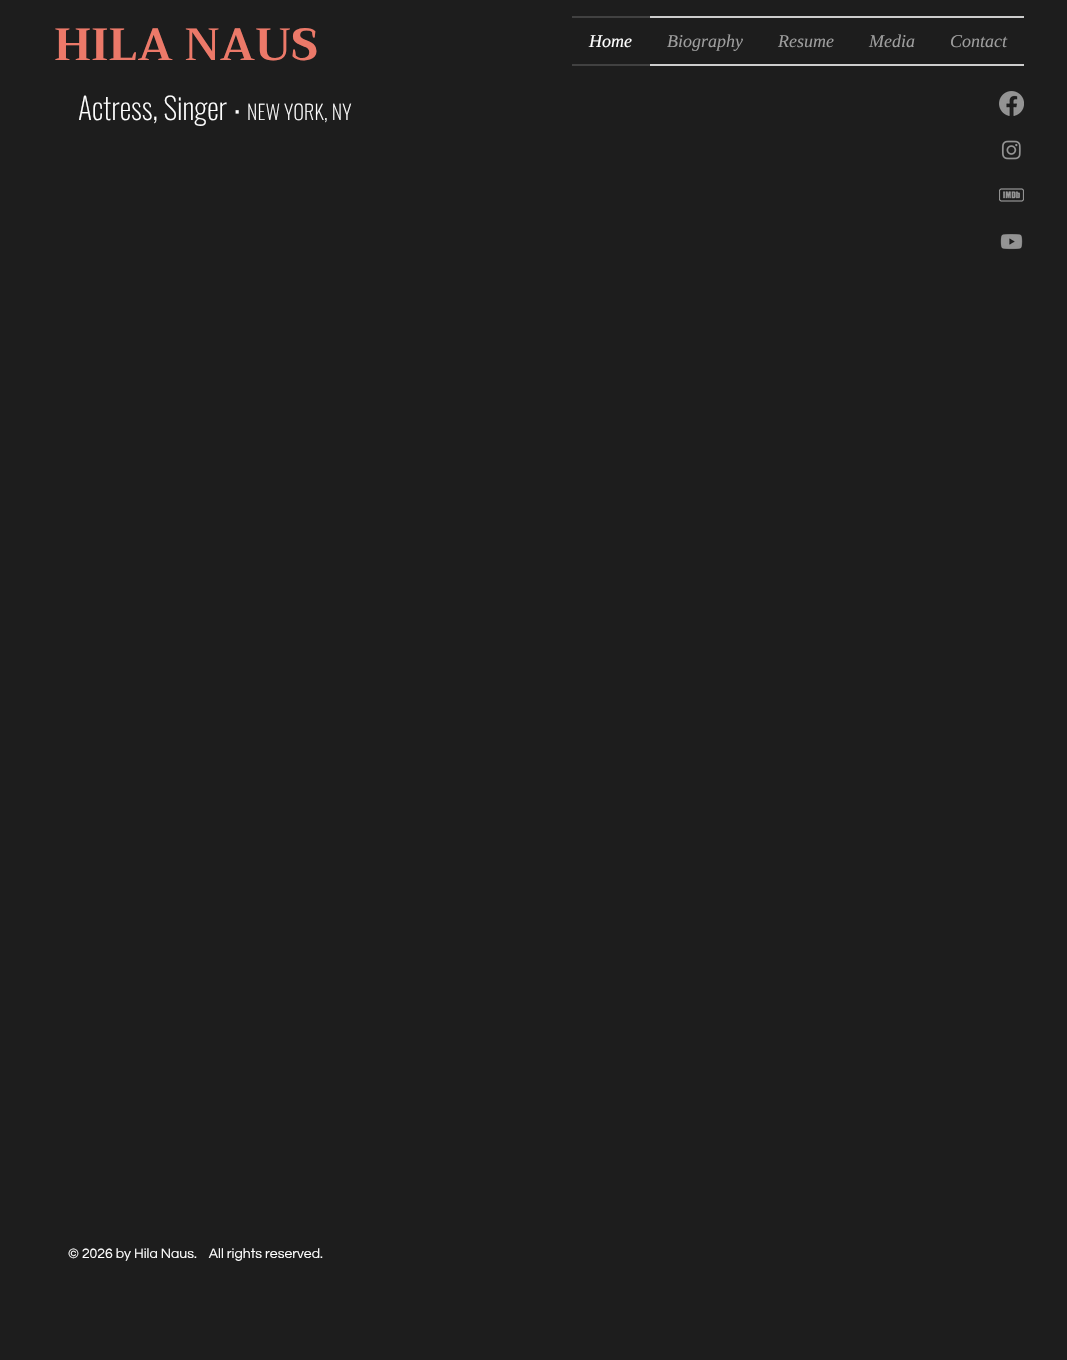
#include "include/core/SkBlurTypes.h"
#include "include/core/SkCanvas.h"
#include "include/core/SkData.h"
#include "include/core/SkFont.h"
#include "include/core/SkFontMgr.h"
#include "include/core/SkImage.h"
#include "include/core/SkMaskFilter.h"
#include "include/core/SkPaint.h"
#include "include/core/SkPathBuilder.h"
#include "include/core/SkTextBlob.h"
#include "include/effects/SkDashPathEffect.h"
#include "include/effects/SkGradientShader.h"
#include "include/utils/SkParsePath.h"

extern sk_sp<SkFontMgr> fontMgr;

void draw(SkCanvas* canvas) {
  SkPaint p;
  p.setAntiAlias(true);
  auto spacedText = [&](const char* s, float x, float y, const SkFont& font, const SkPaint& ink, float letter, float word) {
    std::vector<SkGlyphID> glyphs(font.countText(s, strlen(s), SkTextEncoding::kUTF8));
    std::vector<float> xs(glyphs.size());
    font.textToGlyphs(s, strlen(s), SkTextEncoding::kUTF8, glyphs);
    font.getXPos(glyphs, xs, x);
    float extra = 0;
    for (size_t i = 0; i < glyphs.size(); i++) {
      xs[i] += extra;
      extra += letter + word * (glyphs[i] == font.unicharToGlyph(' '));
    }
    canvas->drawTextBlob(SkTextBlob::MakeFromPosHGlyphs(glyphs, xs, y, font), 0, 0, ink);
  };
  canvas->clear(SkColorSetRGB(29, 29, 29));
  p.setColor(SkColorSetRGB(65, 65, 65));
  canvas->drawRect(SkRect::MakeLTRB(572, 16, 650, 18), p);
  canvas->drawRect(SkRect::MakeLTRB(572, 64, 650, 66), p);
  p.setColor(SkColorSetRGB(204, 204, 204));
  canvas->drawRect(SkRect::MakeLTRB(650, 16, 1024, 18), p);
  canvas->drawRect(SkRect::MakeLTRB(650, 64, 1024, 66), p);
  canvas->drawImageRect(SkImages::DeferredFromEncodedData(SkData::MakeFromFileName("images/1.png")), SkRect::MakeLTRB(999, 91, 1024, 116), SkSamplingOptions());
  canvas->drawImageRect(SkImages::DeferredFromEncodedData(SkData::MakeFromFileName("images/2.png")), SkRect::MakeLTRB(1001, 140, 1021, 160), SkSamplingOptions());
  canvas->drawImageRect(SkImages::DeferredFromEncodedData(SkData::MakeFromFileName("images/3.png")), SkRect::MakeLTRB(999, 188, 1024, 202), SkSamplingOptions());
  canvas->drawImageRect(SkImages::DeferredFromEncodedData(SkData::MakeFromFileName("images/4.png")), SkRect::MakeLTRB(1000, 234, 1023, 250), SkSamplingOptions());
  SkFont font1(fontMgr->matchFamilyStyle("Trirong", SkFontStyle::Bold()), 45);
  font1.setSubpixel(true);
  p.setColor(SkColorSetRGB(236, 121, 105));
  canvas->drawString("HILA NAUS", 54, 60, font1, p);
  SkFont font2(fontMgr->matchFamilyStyle("Liberation Serif", SkFontStyle::Italic()), 18);
  font2.setSubpixel(true);
  p.setColor(SK_ColorWHITE);
  canvas->drawString("Home", 589, 47, font2, p);
  p.setColor(SkColorSetRGB(158, 158, 158));
  canvas->drawString("Biography", 667, 47, font2, p);
  canvas->drawString("Resume", 778, 47, font2, p);
  canvas->drawString("Media", 869, 47, font2, p);
  canvas->drawString("Contact", 950, 47, font2, p);
  SkFont font3(fontMgr->matchFamilyStyle("Oswald", SkFontStyle(200, SkFontStyle::kNormal_Width, SkFontStyle::kUpright_Slant)), 30);
  font3.setSubpixel(true);
  p.setColor(SK_ColorWHITE);
  canvas->drawString("Actress, Singer", 78, 120, font3, p);
  SkFont font4(fontMgr->matchFamilyStyle("Liberation Sans", SkFontStyle::Normal()), 30);
  font4.setSubpixel(true);
  canvas->drawString("∙", 233, 120, font4, p);
  SkFont font5(fontMgr->matchFamilyStyle("Oswald", SkFontStyle(200, SkFontStyle::kNormal_Width, SkFontStyle::kUpright_Slant)), 20);
  font5.setSubpixel(true);
  spacedText("NEW YORK, NY", 247, 120, font5, p, 0.25f, 0);
  SkFont font6(fontMgr->matchFamilyStyle("Questrial", SkFontStyle::Normal()), 14);
  font6.setSubpixel(true);
  canvas->drawString("© 2026 by Hila Naus.    All rights reserved.", 68, 1258, font6, p);
}
